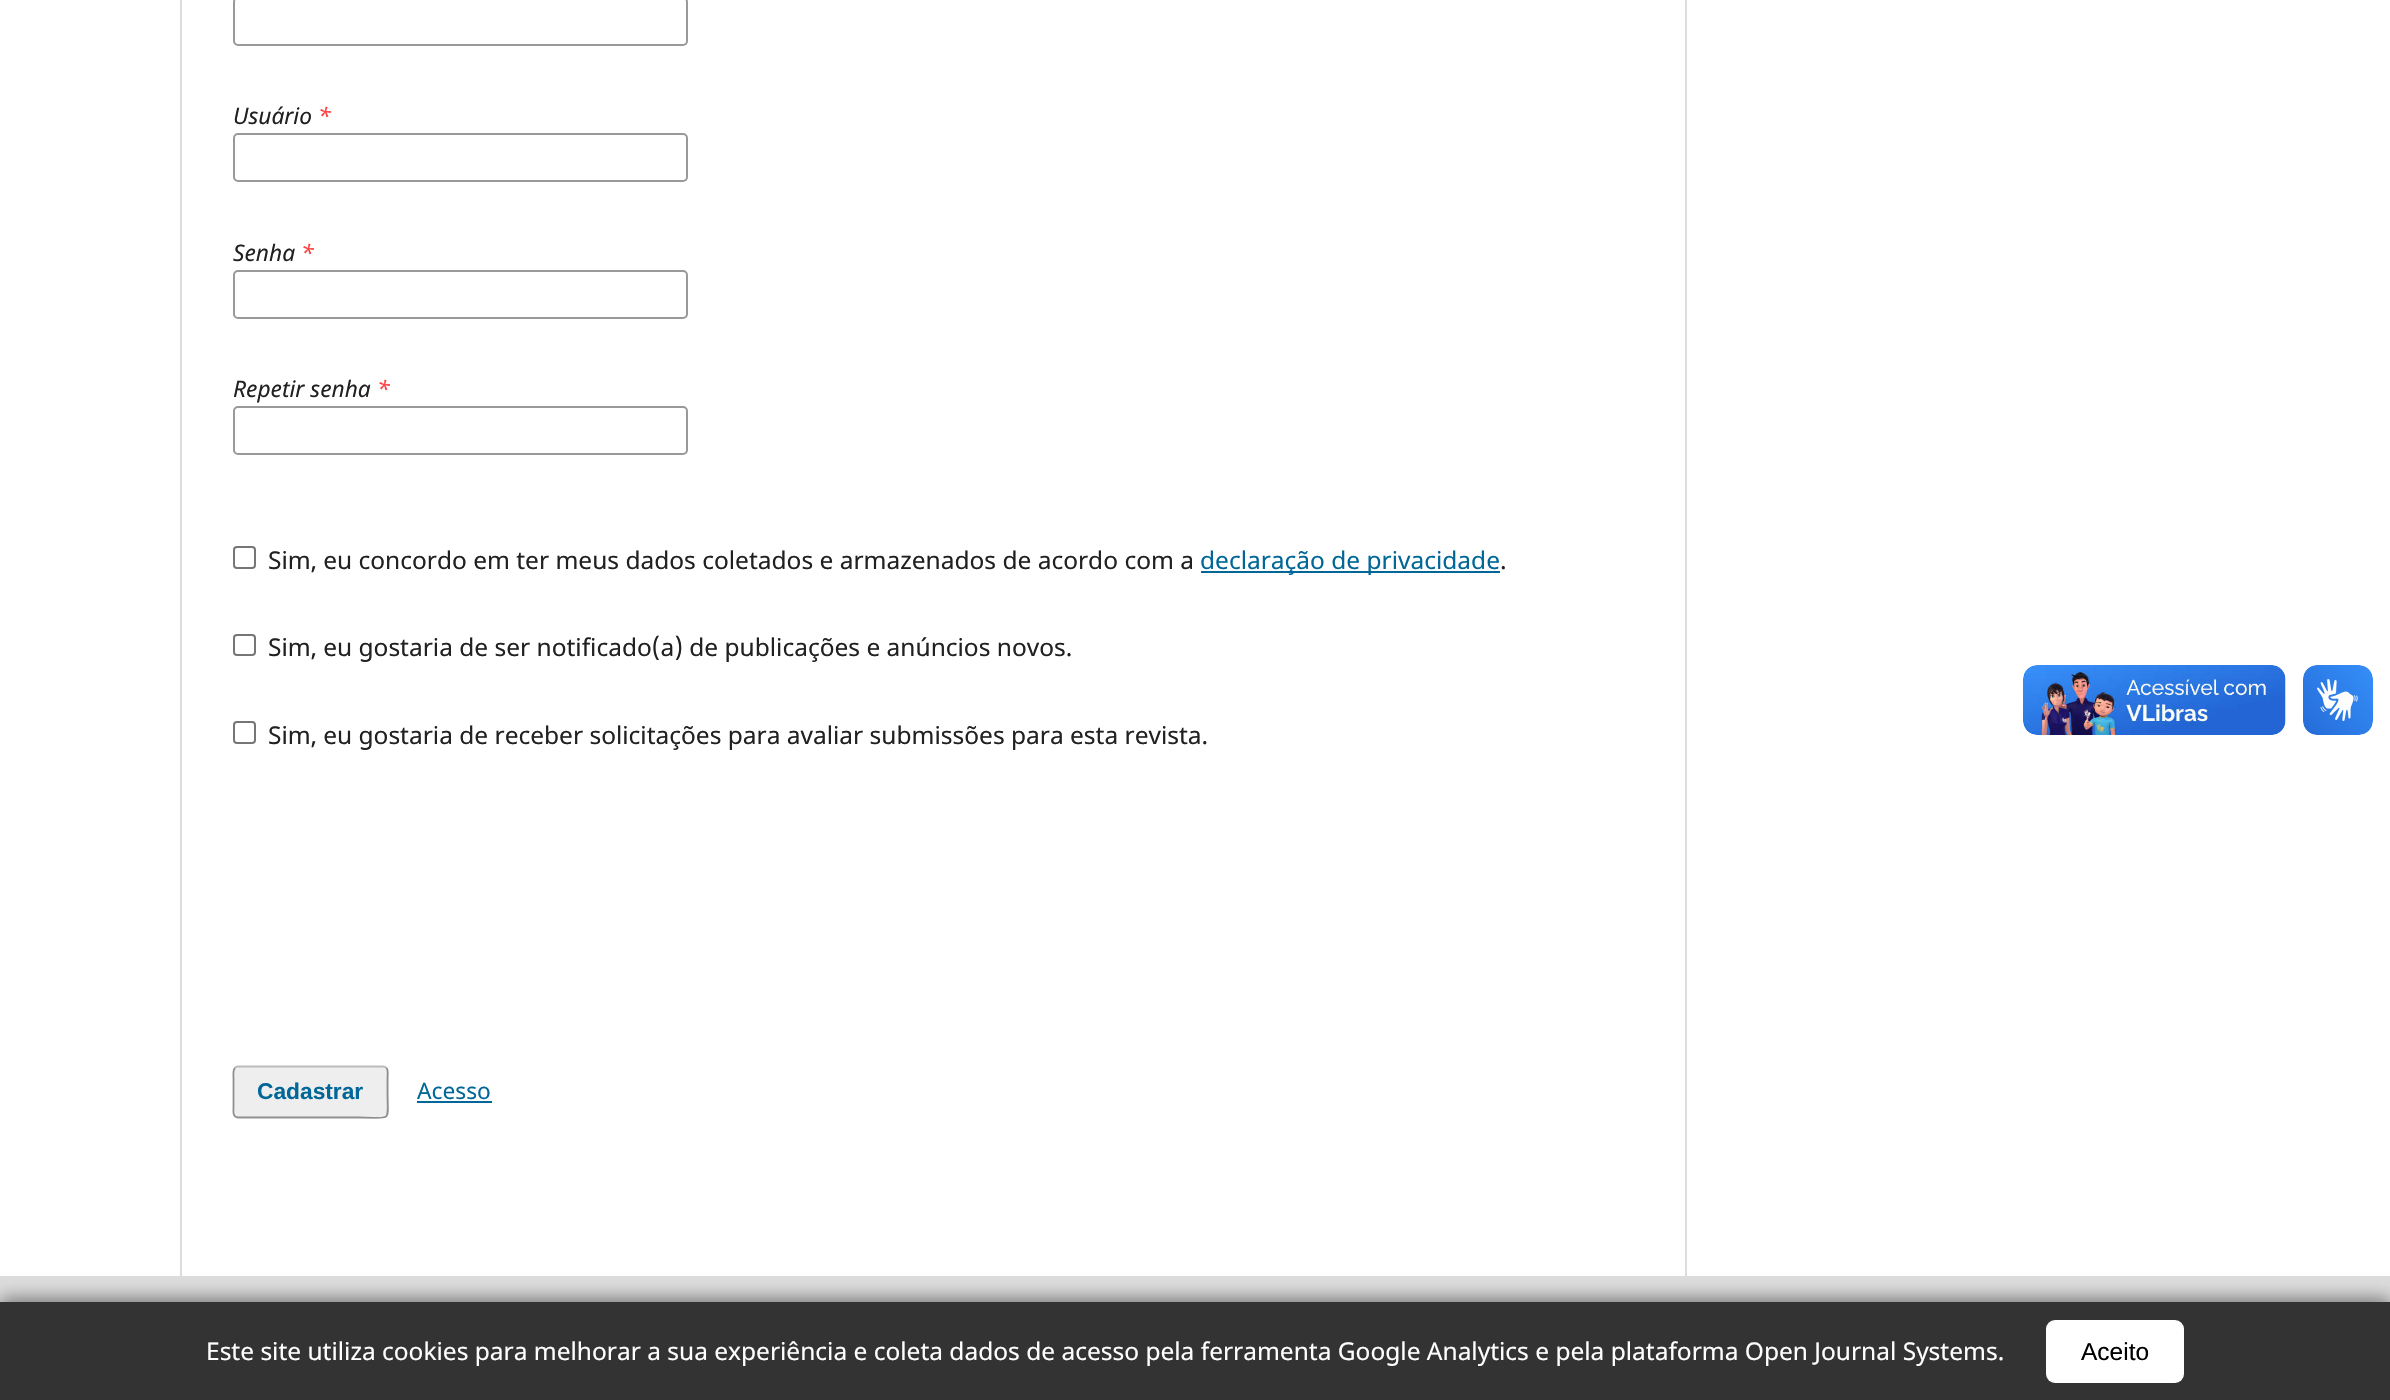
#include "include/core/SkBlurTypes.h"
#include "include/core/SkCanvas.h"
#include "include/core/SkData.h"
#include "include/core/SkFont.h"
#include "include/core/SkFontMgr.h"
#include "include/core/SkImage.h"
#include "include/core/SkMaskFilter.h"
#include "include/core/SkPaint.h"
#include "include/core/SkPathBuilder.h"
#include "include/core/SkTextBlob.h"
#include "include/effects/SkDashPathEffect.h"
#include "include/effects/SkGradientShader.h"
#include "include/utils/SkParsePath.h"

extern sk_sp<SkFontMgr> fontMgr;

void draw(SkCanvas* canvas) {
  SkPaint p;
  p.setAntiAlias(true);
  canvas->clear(SK_ColorWHITE);
  p.setColor(SkColorSetRGB(221, 221, 221));
  canvas->drawRect(SkRect::MakeLTRB(180, 0, 182, 1276), p);
  p.setStyle(SkPaint::kStroke_Style);
  p.setStrokeWidth(2);
  p.setColor(SkColorSetRGB(153, 153, 153));
  canvas->drawRoundRect(SkRect::MakeLTRB(234, -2, 687, 45), 4, 4, p);
  canvas->drawRoundRect(SkRect::MakeLTRB(234, 134, 687, 181), 4, 4, p);
  canvas->drawRoundRect(SkRect::MakeLTRB(234, 271, 687, 318), 4, 4, p);
  canvas->drawRoundRect(SkRect::MakeLTRB(234, 407, 687, 454), 4, 4, p);
  p.setColor(SkColorSetRGB(118, 118, 118));
  canvas->drawRoundRect(SkRect::MakeLTRB(234, 547, 255, 568), 3, 3, p);
  p.setStyle(SkPaint::kFill_Style);
  p.setColor(SkColorSetRGB(0, 103, 152));
  canvas->drawRect(SkRect::MakeLTRB(1201, 571, 1500, 573), p);
  p.setStyle(SkPaint::kStroke_Style);
  p.setColor(SkColorSetRGB(118, 118, 118));
  canvas->drawRoundRect(SkRect::MakeLTRB(234, 635, 255, 655), 3, 3, p);
  canvas->drawRoundRect(SkRect::MakeLTRB(234, 722, 255, 743), 3, 3, p);
  p.setStyle(SkPaint::kFill_Style);
  p.setColor(SkColorSetRGB(238, 238, 238));
  canvas->drawRoundRect(SkRect::MakeLTRB(233, 1066, 389, 1118), 5, 5, p);
  p.setStyle(SkPaint::kStroke_Style);
  p.setStrokeWidth(1.8f);
  p.setColor(SkColorSetRGB(187, 187, 187));
  canvas->drawPath(SkPathBuilder().moveTo(235, 1068).cubicTo(235.5f, 1067, 237, 1066.5f, 238, 1066.5f).lineTo(383, 1066.5f).cubicTo(384.5f, 1066.5f, 385.5f, 1067, 386.5f, 1068).detach(), p);
  p.setColor(SkColorSetARGB(102, 0, 0, 0));
  canvas->drawPath(SkPathBuilder().moveTo(386.5f, 1068).cubicTo(388.5f, 1070.5f, 387.5f, 1075.5f, 387.5f, 1078).lineTo(387.5f, 1092).cubicTo(387.5f, 1123.5f, 393, 1117.5f, 359, 1117.5f).lineTo(238, 1117.5f).cubicTo(232, 1117.5f, 233.5f, 1109.5f, 233.5f, 1106).lineTo(233.5f, 1078).cubicTo(233.5f, 1075.5f, 232.5f, 1070.5f, 235, 1068).detach(), p);
  p.setStyle(SkPaint::kFill_Style);
  p.setColor(SkColorSetRGB(0, 103, 152));
  canvas->drawRect(SkRect::MakeLTRB(417, 1101, 492, 1103), p);
  p.setColor(SkColorSetRGB(221, 221, 221));
  canvas->drawRect(SkRect::MakeLTRB(1685, 0, 1687, 1276), p);
  canvas->drawRect(SkRect::MakeLTRB(0, 1276, 2390, 1302), p);
  canvas->drawImageRect(SkImages::DeferredFromEncodedData(SkData::MakeFromFileName("images/1.png")), SkRect::MakeLTRB(2023, 665, 2286, 735), SkSamplingOptions());
  canvas->drawImageRect(SkImages::DeferredFromEncodedData(SkData::MakeFromFileName("images/2.png")), SkRect::MakeLTRB(2303, 665, 2373, 735), SkSamplingOptions());
  p.setColor(SkColorSetARGB(128, 0, 0, 0));
  p.setMaskFilter(SkMaskFilter::MakeBlur(kNormal_SkBlurStyle, 9));
  canvas->drawRect(SkRect::MakeLTRB(0, 1299, 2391, 1397), p);
  p.setMaskFilter(nullptr);
  p.setColor(SkColorSetRGB(51, 51, 51));
  canvas->drawRect(SkRect::MakeLTRB(0, 1302, 2390, 1400), p);
  p.setColor(SK_ColorWHITE);
  canvas->drawRoundRect(SkRect::MakeLTRB(2046, 1320, 2184, 1383), 9, 9, p);
  SkFont font1(fontMgr->matchFamilyStyle("Noto Sans", SkFontStyle::Italic()), 22.75f);
  font1.setSubpixel(true);
  p.setColor(SkColorSetRGB(33, 33, 33));
  canvas->drawString("Usuário", 233, 124, font1, p);
  p.setColor(SkColorSetRGB(255, 64, 64));
  canvas->drawString("*", 318, 124, font1, p);
  p.setColor(SkColorSetRGB(33, 33, 33));
  canvas->drawString("Senha", 233, 261, font1, p);
  p.setColor(SkColorSetRGB(255, 64, 64));
  canvas->drawString("*", 301, 261, font1, p);
  p.setColor(SkColorSetRGB(33, 33, 33));
  canvas->drawString("Repetir senha", 233, 397, font1, p);
  p.setColor(SkColorSetRGB(255, 64, 64));
  canvas->drawString("*", 377, 397, font1, p);
  SkFont font2(fontMgr->matchFamilyStyle("Noto Sans", SkFontStyle::Normal()), 24.5f);
  font2.setSubpixel(true);
  p.setColor(SkColorSetRGB(33, 33, 33));
  canvas->drawString("Sim, eu concordo em ter meus dados coletados e armazenados de acordo com a", 268, 569, font2, p);
  p.setColor(SkColorSetRGB(0, 103, 152));
  canvas->drawString("declaração de privacidade", 1200, 569, font2, p);
  p.setColor(SkColorSetRGB(33, 33, 33));
  canvas->drawString(".", 1500, 569, font2, p);
  canvas->drawString("Sim, eu gostaria de ser notificado(a) de publicações e anúncios novos.", 268, 656, font2, p);
  canvas->drawString("Sim, eu gostaria de receber solicitações para avaliar submissões para esta revista.", 268, 744, font2, p);
  SkFont font3(fontMgr->matchFamilyStyle("Liberation Sans", SkFontStyle::Bold()), 22.75f);
  font3.setSubpixel(true);
  p.setColor(SkColorSetRGB(0, 103, 152));
  canvas->drawString("Cadastrar", 257, 1099, font3, p);
  SkFont font4(fontMgr->matchFamilyStyle("Noto Sans", SkFontStyle::Normal()), 22.75f);
  font4.setSubpixel(true);
  canvas->drawString("Acesso", 417, 1099, font4, p);
  p.setColor(SK_ColorWHITE);
  canvas->drawString("Este site utiliza cookies para melhorar a sua experiência e coleta dados de acesso pela ferramenta Google Analytics e pela plataforma Open Journal Systems.", 206, 1360, font2, p);
  SkFont font5(fontMgr->matchFamilyStyle("Liberation Sans", SkFontStyle::Normal()), 24.5f);
  font5.setSubpixel(true);
  p.setColor(SK_ColorBLACK);
  canvas->drawString("Aceito", 2081, 1360, font5, p);
}
